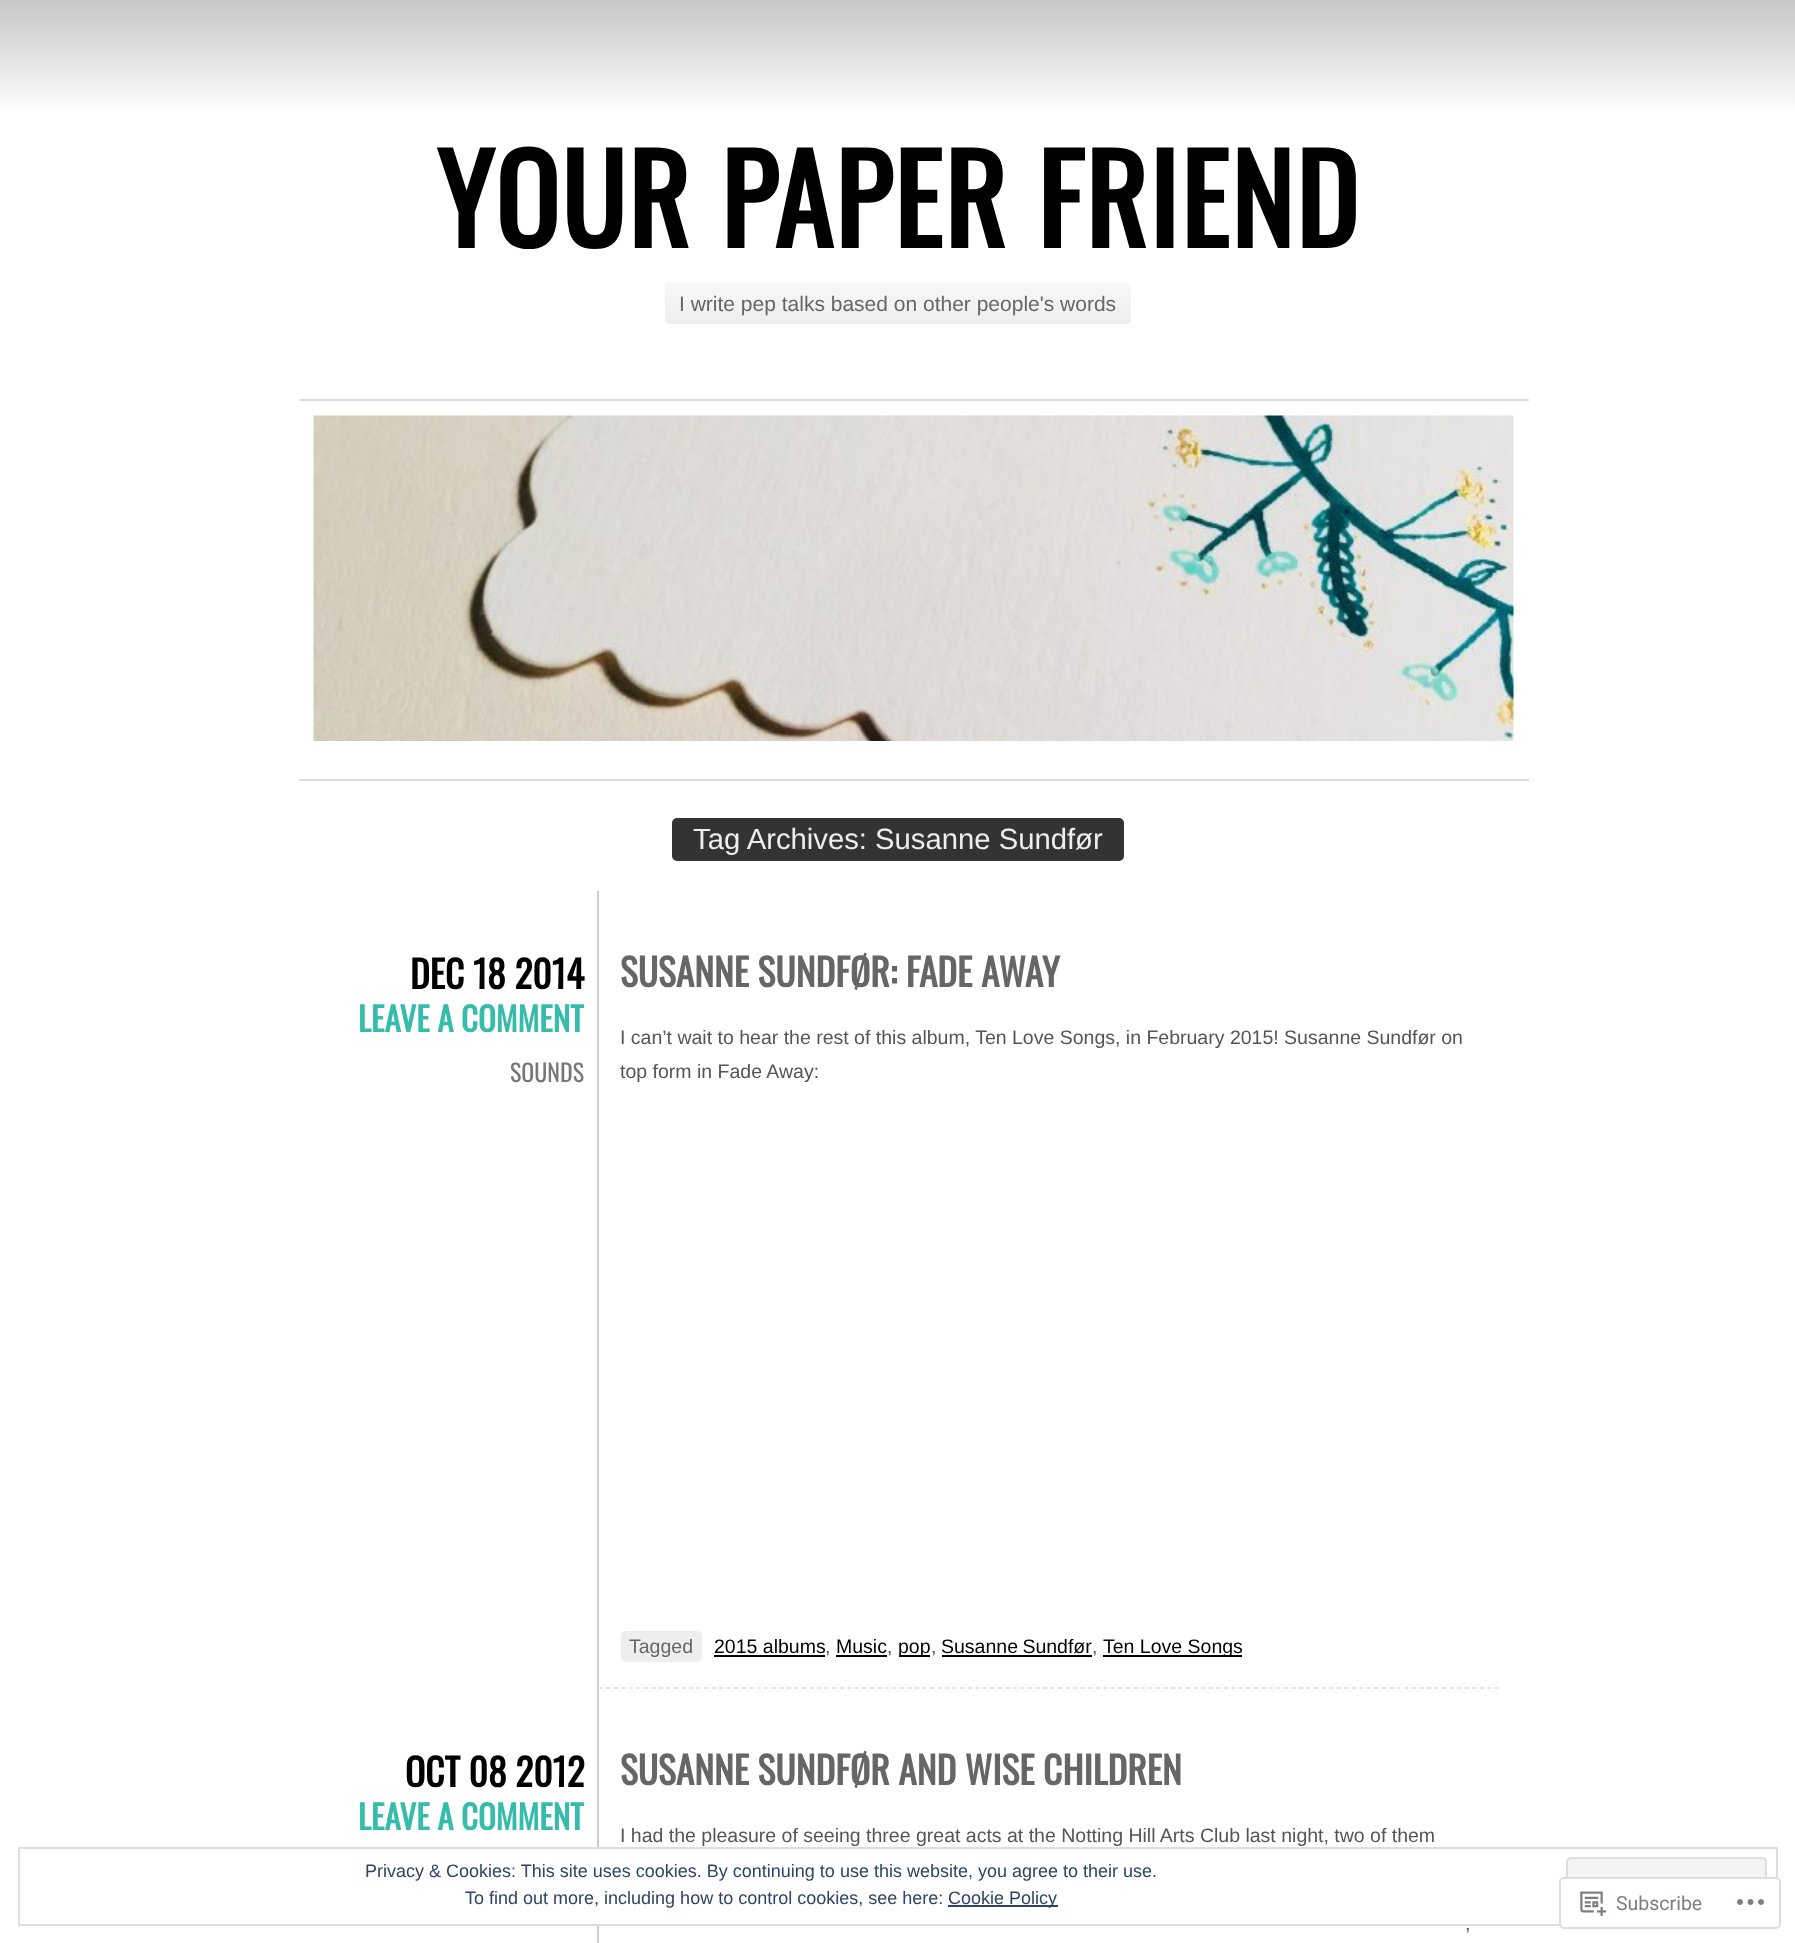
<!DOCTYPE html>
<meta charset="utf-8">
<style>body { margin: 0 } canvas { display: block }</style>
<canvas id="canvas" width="1795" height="1943"></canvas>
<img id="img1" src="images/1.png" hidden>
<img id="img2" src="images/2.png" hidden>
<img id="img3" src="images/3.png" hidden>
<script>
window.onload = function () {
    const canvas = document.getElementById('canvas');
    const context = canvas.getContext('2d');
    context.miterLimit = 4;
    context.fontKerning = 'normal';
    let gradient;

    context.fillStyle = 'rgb(255, 255, 255)';
    context.fillRect(0, 0, 1795, 1943);
    gradient = context.createLinearGradient(898, 0, 898, 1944);
    gradient.addColorStop(0, 'rgb(199, 199, 199)');
    gradient.addColorStop(0.06, 'rgb(255, 255, 255)');
    context.fillStyle = gradient;
    context.fillRect(0, 0, 1795, 111);
    gradient = context.createLinearGradient(898, 282, 898, 324);
    gradient.addColorStop(0, 'rgb(248, 248, 248)');
    gradient.addColorStop(1, 'rgb(238, 238, 238)');
    context.fillStyle = gradient;
    context.beginPath();
    context.roundRect(665, 282, 466, 42, 5);
    context.fill();
    context.fillStyle = 'rgb(221, 221, 221)';
    context.fillRect(299, 399, 1230, 2);
    context.fillRect(299, 779, 1230, 2);
    context.drawImage(document.getElementById('img1'), 313, 415, 1201, 326);
    context.fillStyle = 'rgb(51, 51, 51)';
    context.beginPath();
    context.roundRect(672, 818, 452, 43, 5);
    context.fill();
    context.fillStyle = 'rgb(204, 204, 204)';
    context.fillRect(597, 891, 2, 1052);
    context.beginPath();
    context.moveTo(598.5, 1688);
    context.lineTo(1498.5, 1688);
    context.strokeStyle = 'rgb(221, 221, 221)';
    context.lineWidth = 1.5;
    context.setLineDash([4.5, 3.03]);
    context.stroke();
    context.fillStyle = 'rgb(238, 238, 238)';
    context.beginPath();
    context.roundRect(621, 1631, 81, 31, 5);
    context.fill();
    context.fillStyle = 'rgb(0, 0, 0)';
    context.fillRect(714, 1655, 111, 2);
    context.fillRect(836, 1655, 51, 2);
    context.fillRect(899, 1655, 31, 2);
    context.fillRect(942, 1655, 150, 2);
    context.fillRect(1103, 1655, 139, 2);
    context.fillStyle = 'rgb(255, 255, 255)';
    context.fillRect(597, 1849, 2, 75);
    context.strokeStyle = 'rgb(222, 222, 222)';
    context.lineWidth = 2;
    context.setLineDash([]);
    context.strokeRect(19, 1848, 1758, 77);
    context.fillStyle = 'rgb(243, 243, 243)';
    context.beginPath();
    context.roundRect(1567, 1858, 199, 57, 4);
    context.fill();
    context.stroke();
    context.fillStyle = 'rgb(46, 68, 103)';
    context.fillRect(948, 1905, 110, 2);
    context.fillStyle = 'rgba(255, 255, 255, 0.98)';
    context.beginPath();
    context.roundRect(1559, 1877, 222, 52, 5);
    context.fill();
    context.beginPath();
    context.roundRect(1560, 1878, 220, 50, 4);
    context.strokeStyle = 'rgba(220, 220, 222, 0.98)';
    context.stroke();
    context.drawImage(document.getElementById('img2'), 1580, 1891, 27, 25);
    context.drawImage(document.getElementById('img3'), 1737, 1899, 27, 6);
    context.letterSpacing = '1.5px';
    context.font = 'bold 120px Oswald';
    context.fillStyle = 'rgb(0, 0, 0)';
    context.fillText('YOUR PAPER FRIEND', 436, 248);
    context.letterSpacing = '0px';
    context.font = '21px Liberation Sans';
    context.fillStyle = 'rgb(102, 102, 102)';
    context.fillText('I write pep talks based on other people\'s words', 679, 311);
    context.font = '29.25px Liberation Sans';
    context.fillStyle = 'rgb(238, 238, 238)';
    context.fillText('Tag Archives: Susanne Sundfør', 693, 849);
    context.font = 'bold 37.5px Oswald';
    context.fillStyle = 'rgb(0, 0, 0)';
    context.fillText('DEC 18 2014', 410, 989);
    context.font = 'bold 33px Oswald';
    context.fillStyle = 'rgb(54, 188, 171)';
    context.fillText('LEAVE A COMMENT', 358, 1032);
    context.font = '24px Oswald';
    context.fillStyle = 'rgb(119, 119, 119)';
    context.fillText('SOUNDS', 510, 1082);
    context.font = 'bold 37.5px Oswald';
    context.fillStyle = 'rgb(102, 102, 102)';
    context.fillText('SUSANNE SUNDFØR: FADE AWAY', 620, 987);
    context.font = '19.5px Liberation Sans';
    context.fillStyle = 'rgb(85, 85, 85)';
    context.fillText('I can’t wait to hear the rest of this album, Ten Love Songs, in February 2015! Susanne Sundfør on', 620, 1044);
    context.fillText('top form in Fade Away:', 620, 1078);
    context.fillStyle = 'rgb(102, 102, 102)';
    context.fillText('Tagged', 629, 1653);
    context.fillStyle = 'rgb(0, 0, 0)';
    context.fillText('2015 albums', 714, 1653);
    context.fillStyle = 'rgb(85, 85, 85)';
    context.fillText(',', 825, 1653);
    context.fillStyle = 'rgb(0, 0, 0)';
    context.fillText('Music', 836, 1653);
    context.fillStyle = 'rgb(85, 85, 85)';
    context.fillText(',', 887, 1653);
    context.fillStyle = 'rgb(0, 0, 0)';
    context.fillText('pop', 898, 1653);
    context.fillStyle = 'rgb(85, 85, 85)';
    context.fillText(',', 931, 1653);
    context.wordSpacing = '-1px';
    context.fillStyle = 'rgb(0, 0, 0)';
    context.fillText('Susanne Sundfør', 941, 1653);
    context.wordSpacing = '0px';
    context.fillStyle = 'rgb(85, 85, 85)';
    context.fillText(',', 1092, 1653);
    context.fillStyle = 'rgb(0, 0, 0)';
    context.fillText('Ten Love Songs', 1103, 1653);
    context.font = 'bold 37.5px Oswald';
    context.fillText('OCT 08 2012', 405, 1787);
    context.font = 'bold 33px Oswald';
    context.fillStyle = 'rgb(54, 188, 171)';
    context.fillText('LEAVE A COMMENT', 358, 1830);
    context.font = 'bold 37.5px Oswald';
    context.fillStyle = 'rgb(102, 102, 102)';
    context.fillText('SUSANNE SUNDFØR AND WISE CHILDREN', 620, 1785);
    context.font = '19.5px Liberation Sans';
    context.fillStyle = 'rgb(85, 85, 85)';
    context.fillText('I had the pleasure of seeing three great acts at the Notting Hill Arts Club last night, two of them', 620, 1842);
    context.fillText(',', 1465, 1930);
    context.font = '18px Liberation Sans';
    context.fillStyle = 'rgb(46, 68, 103)';
    context.fillText('Privacy & Cookies: This site uses cookies. By continuing to use this website, you agree to their use.', 365, 1877);
    context.fillText('To find out more, including how to control cookies, see here:', 465, 1904);
    context.fillText('Cookie Policy', 948, 1904);
    context.font = '19.5px Roboto';
    context.fillStyle = 'rgb(122, 126, 132)';
    context.fillText('Subscribe', 1616, 1910);
};
</script>
